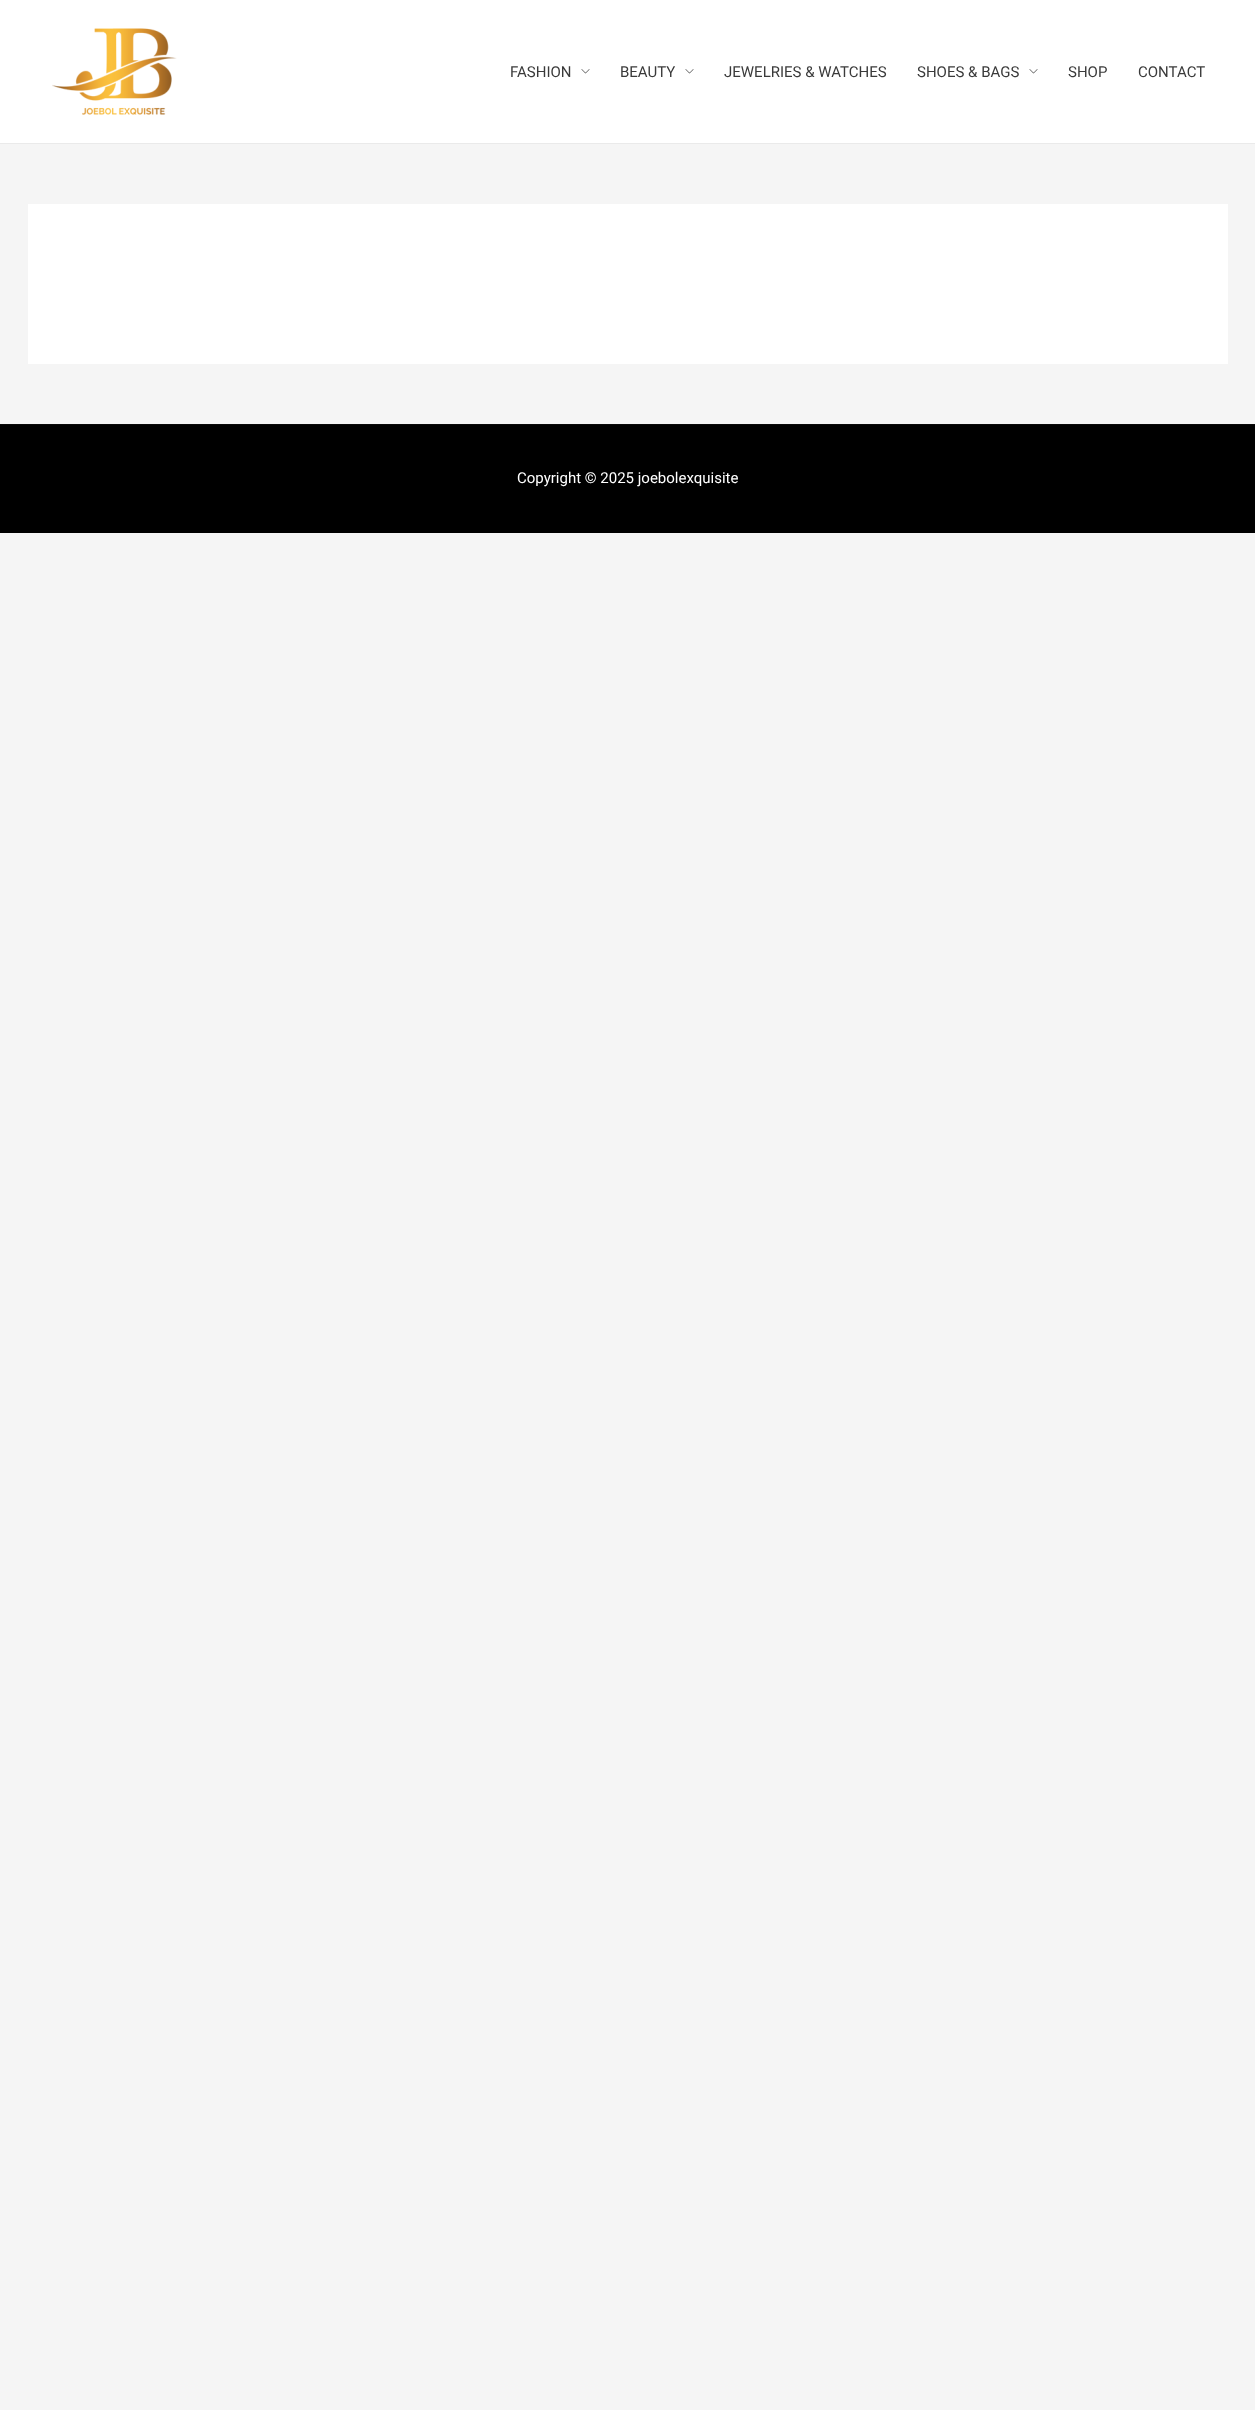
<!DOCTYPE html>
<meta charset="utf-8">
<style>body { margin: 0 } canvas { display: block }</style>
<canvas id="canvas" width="1255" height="2410"></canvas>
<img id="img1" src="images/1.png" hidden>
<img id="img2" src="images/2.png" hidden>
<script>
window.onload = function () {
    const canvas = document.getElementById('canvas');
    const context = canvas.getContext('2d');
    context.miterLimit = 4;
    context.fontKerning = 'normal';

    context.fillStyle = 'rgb(245, 245, 245)';
    context.fillRect(0, 0, 1255, 2410);
    context.fillStyle = 'rgb(255, 255, 255)';
    context.fillRect(0, 0, 1255, 143);
    context.fillStyle = 'rgb(234, 234, 234)';
    context.fillRect(0, 143, 1255, 1);
    context.drawImage(document.getElementById('img1'), 52, 28, 125, 87);
    context.drawImage(document.getElementById('img2'), 581, 69, 9, 5);
    context.drawImage(document.getElementById('img2'), 685, 69, 9, 5);
    context.drawImage(document.getElementById('img2'), 1029, 69, 9, 5);
    context.fillStyle = 'rgb(255, 255, 255)';
    context.fillRect(28, 204, 1200, 160);
    context.fillStyle = 'rgb(10, 10, 10)';
    context.fillRect(0, 424, 1255, 1);
    context.fillStyle = 'rgb(0, 0, 0)';
    context.fillRect(0, 425, 1255, 108);
    context.font = '15px Roboto';
    context.fillStyle = 'rgb(58, 58, 58)';
    context.fillText('FASHION', 510, 77);
    context.fillText('BEAUTY', 620, 77);
    context.fillText('JEWELRIES & WATCHES', 724, 77);
    context.fillText('SHOES & BAGS', 917, 77);
    context.fillText('SHOP', 1068, 77);
    context.fillText('CONTACT', 1138, 77);
    context.fillStyle = 'rgb(255, 255, 255)';
    context.fillText('Copyright © 2025 joebolexquisite', 517, 483);
};
</script>
